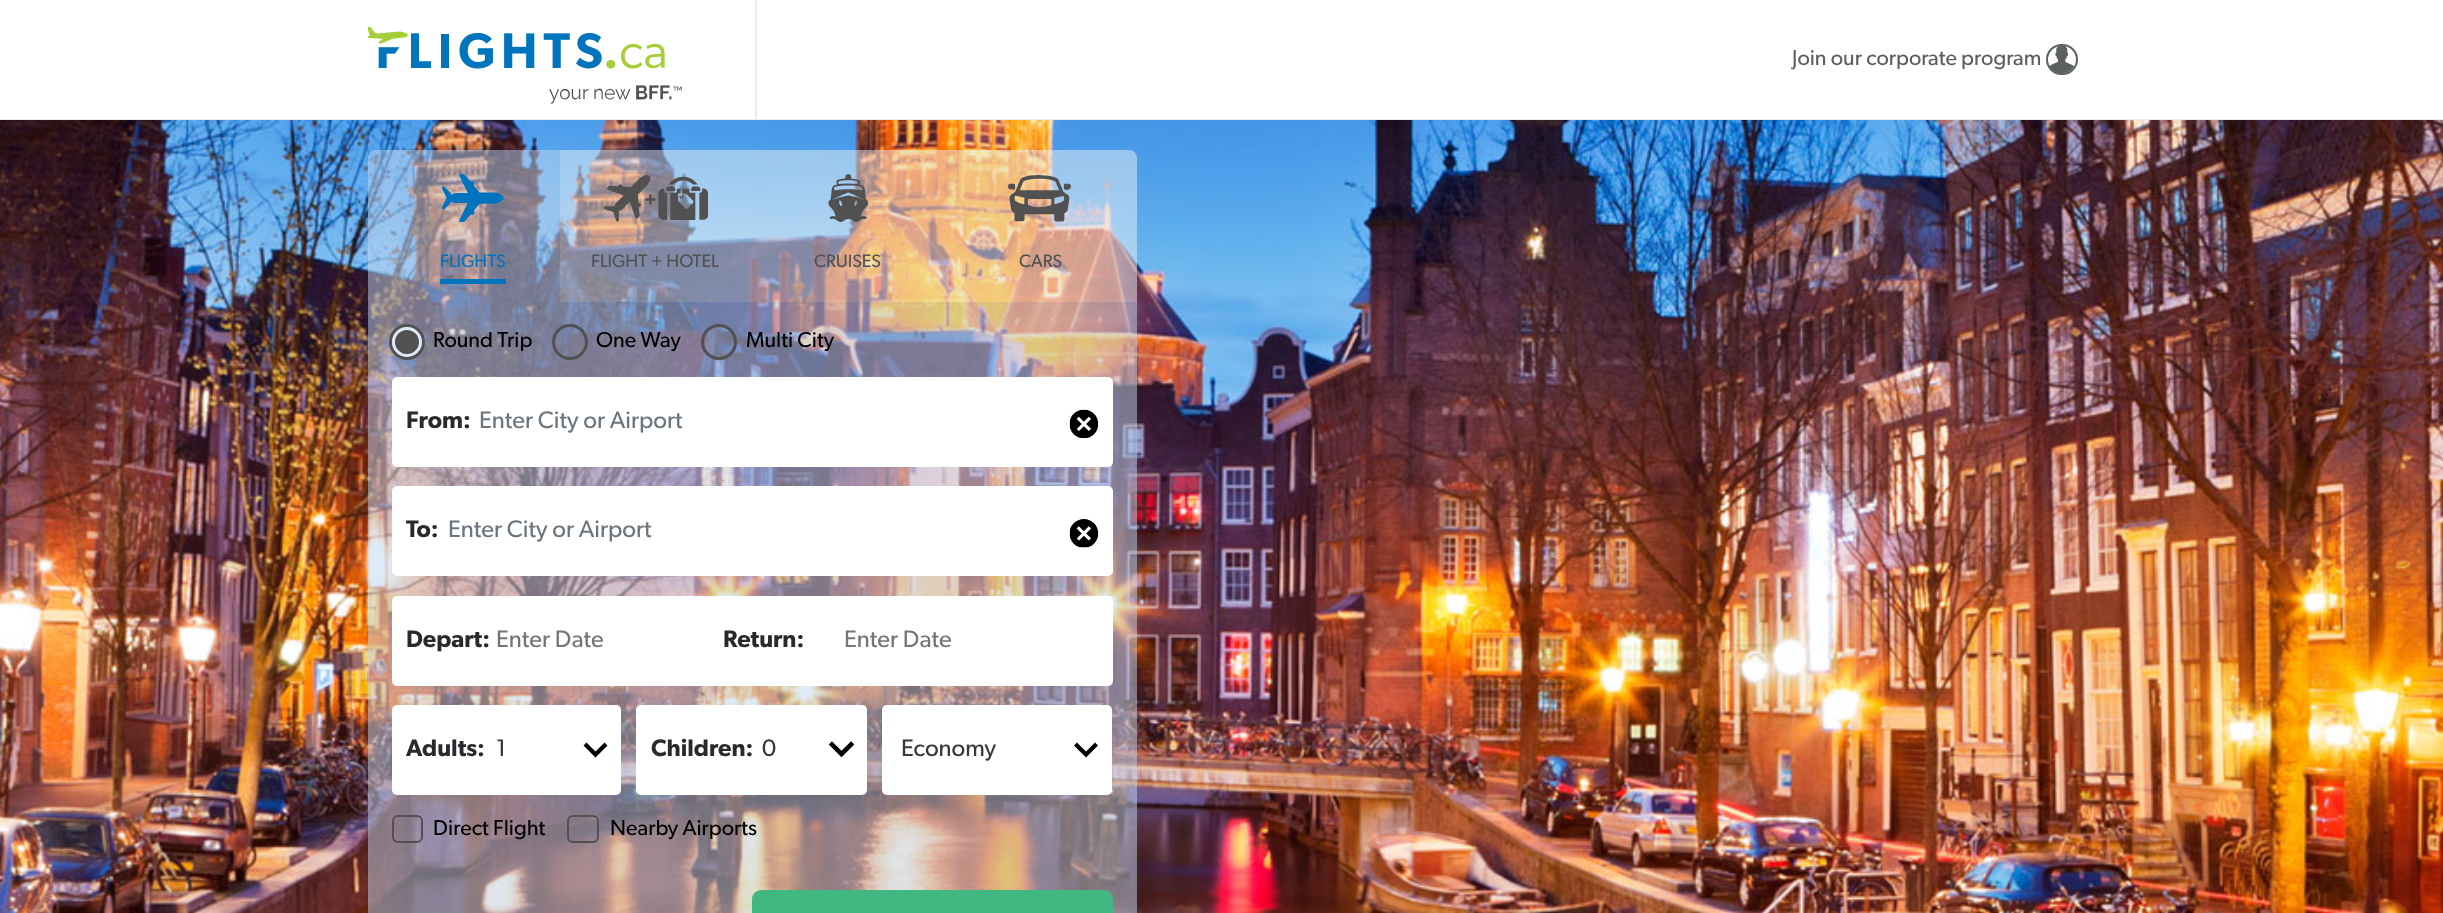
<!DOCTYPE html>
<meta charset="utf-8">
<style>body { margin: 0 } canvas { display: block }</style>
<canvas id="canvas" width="2443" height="913"></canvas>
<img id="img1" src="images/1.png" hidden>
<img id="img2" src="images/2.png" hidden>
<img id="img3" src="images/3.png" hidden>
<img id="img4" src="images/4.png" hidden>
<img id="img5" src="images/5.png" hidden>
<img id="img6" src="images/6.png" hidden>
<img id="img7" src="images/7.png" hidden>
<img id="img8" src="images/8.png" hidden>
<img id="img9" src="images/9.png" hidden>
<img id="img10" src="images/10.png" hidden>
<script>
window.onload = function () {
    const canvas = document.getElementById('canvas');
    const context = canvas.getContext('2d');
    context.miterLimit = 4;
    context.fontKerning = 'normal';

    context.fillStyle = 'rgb(255, 255, 255)';
    context.fillRect(0, 0, 2443, 913);
    context.fillStyle = 'rgb(235, 235, 235)';
    context.fillRect(0, 119, 2443, 1);
    context.fillRect(755, 0, 2, 119);
    context.drawImage(document.getElementById('img1'), 368, 26, 314, 78);
    context.beginPath();
    context.roundRect(2047, 45, 30, 29, 14.5);
    context.strokeStyle = 'rgb(92, 96, 96)';
    context.lineWidth = 2;
    context.stroke();
    context.drawImage(document.getElementById('img2'), 2049, 46, 25, 27);
    context.drawImage(document.getElementById('img3'), 0, 120, 2443, 793);
    context.fillStyle = 'rgba(194, 214, 239, 0.5)';
    context.beginPath();
    context.roundRect(368, 150, 192, 152, [8, 0, 0, 0]);
    context.fill();
    context.drawImage(document.getElementById('img4'), 441, 174, 63, 48);
    context.fillStyle = 'rgb(0, 116, 188)';
    context.fillRect(440, 279, 66, 5);
    context.fillStyle = 'rgba(234, 239, 243, 0.5)';
    context.fillRect(560, 150, 192, 152);
    context.drawImage(document.getElementById('img5'), 603, 175, 105, 47);
    context.fillRect(752, 150, 192, 152);
    context.drawImage(document.getElementById('img6'), 828, 174, 41, 48);
    context.beginPath();
    context.roundRect(944, 150, 193, 152, [0, 8, 0, 0]);
    context.fill();
    context.drawImage(document.getElementById('img7'), 1008, 175, 63, 47);
    context.fillStyle = 'rgba(194, 214, 239, 0.5)';
    context.fillRect(368, 302, 769, 611);
    context.beginPath();
    context.arc(407, 342, 16.5, 0, 2 * Math.PI);
    context.strokeStyle = 'rgb(81, 81, 81)';
    context.lineWidth = 3;
    context.stroke();
    context.fillStyle = 'rgb(81, 81, 81)';
    context.beginPath();
    context.arc(407, 342, 13.5, 0, 2 * Math.PI);
    context.fill();
    context.strokeStyle = 'rgb(225, 232, 244)';
    context.stroke();
    context.beginPath();
    context.arc(570, 342, 16.5, 0, 2 * Math.PI);
    context.strokeStyle = 'rgb(81, 81, 81)';
    context.stroke();
    context.beginPath();
    context.arc(719, 342, 16.5, 0, 2 * Math.PI);
    context.stroke();
    context.fillStyle = 'rgb(255, 255, 255)';
    context.beginPath();
    context.roundRect(392, 377, 721, 90, 5);
    context.fill();
    context.drawImage(document.getElementById('img8'), 1069, 409, 30, 29);
    context.beginPath();
    context.roundRect(392, 486, 721, 90, 5);
    context.fill();
    context.drawImage(document.getElementById('img9'), 1069, 519, 30, 29);
    context.beginPath();
    context.roundRect(392, 596, 721, 90, 5);
    context.fill();
    context.beginPath();
    context.roundRect(392, 705, 229, 90, 5);
    context.fill();
    context.fillStyle = 'rgb(1, 1, 1)';
    context.beginPath();
    context.moveTo(595.5, 751.5);
    context.lineTo(586.5, 742.5);
    context.lineTo(583.5, 745.5);
    context.lineTo(595.5, 757.5);
    context.lineTo(607.5, 745.5);
    context.lineTo(604.5, 742.5);
    context.closePath();
    context.fill();
    context.fillStyle = 'rgb(255, 255, 255)';
    context.beginPath();
    context.roundRect(636, 705, 231, 90, 5);
    context.fill();
    context.drawImage(document.getElementById('img10'), 828, 741, 27, 17);
    context.beginPath();
    context.roundRect(882, 705, 230, 90, 5);
    context.fill();
    context.fillStyle = 'rgb(1, 1, 1)';
    context.beginPath();
    context.moveTo(1086, 751.5);
    context.lineTo(1077, 742.5);
    context.lineTo(1074, 745.5);
    context.lineTo(1086, 757.5);
    context.lineTo(1098, 745.5);
    context.lineTo(1095, 742.5);
    context.closePath();
    context.fill();
    context.beginPath();
    context.roundRect(393, 816, 29, 26, 5);
    context.lineWidth = 2;
    context.stroke();
    context.beginPath();
    context.roundRect(568, 816, 30, 26, 5);
    context.stroke();
    context.fillStyle = 'rgb(65, 184, 129)';
    context.beginPath();
    context.roundRect(752, 890, 361, 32, 9);
    context.fill();
    context.font = '21.6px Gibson';
    context.fillStyle = 'rgb(94, 94, 94)';
    context.fillText('Join our corporate program', 1792, 65);
    context.font = '18px Gibson';
    context.fillStyle = 'rgb(0, 116, 188)';
    context.fillText('FLIGHTS', 440, 267);
    context.fillStyle = 'rgb(81, 81, 81)';
    context.fillText('FLIGHT + HOTEL', 591, 267);
    context.fillText('CRUISES', 814, 267);
    context.fillText('CARS', 1019, 267);
    context.font = '21.6px Gibson';
    context.fillStyle = 'rgb(0, 0, 0)';
    context.fillText('Round Trip', 433, 347);
    context.fillText('One Way', 596, 347);
    context.fillText('Multi City', 746, 347);
    context.font = '600 24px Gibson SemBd';
    context.fillStyle = 'rgb(41, 42, 45)';
    context.fillText('From:', 406, 428);
    context.font = '24px Gibson';
    context.fillStyle = 'rgb(108, 117, 125)';
    context.fillText('Enter City or Airport', 479, 428);
    context.font = '600 24px Gibson SemBd';
    context.fillStyle = 'rgb(41, 42, 45)';
    context.fillText('To:', 406, 537);
    context.font = '24px Gibson';
    context.fillStyle = 'rgb(108, 117, 125)';
    context.fillText('Enter City or Airport', 448, 537);
    context.font = '600 24px Gibson SemBd';
    context.fillStyle = 'rgb(41, 42, 45)';
    context.fillText('Depart:', 406, 647);
    context.font = '24px Gibson';
    context.fillStyle = 'rgb(117, 117, 117)';
    context.fillText('Enter Date', 496, 647);
    context.fillText('Enter Date', 844, 647);
    context.font = '600 24px Gibson SemBd';
    context.fillStyle = 'rgb(41, 42, 45)';
    context.fillText('Return:', 723, 647);
    context.fillText('Adults:', 406, 756);
    context.font = '24px Gibson';
    context.fillStyle = 'rgb(56, 56, 56)';
    context.fillText('1', 496, 756);
    context.font = '600 24px Gibson SemBd';
    context.fillStyle = 'rgb(41, 42, 45)';
    context.fillText('Children:', 651, 756);
    context.font = '24px Gibson';
    context.fillStyle = 'rgb(56, 56, 56)';
    context.fillText('0', 762, 756);
    context.fillText('Economy', 901, 756);
    context.font = '21.6px Gibson';
    context.fillStyle = 'rgb(0, 0, 0)';
    context.fillText('Direct Flight', 433, 835);
    context.fillText('Nearby Airports', 610, 835);
};
</script>
